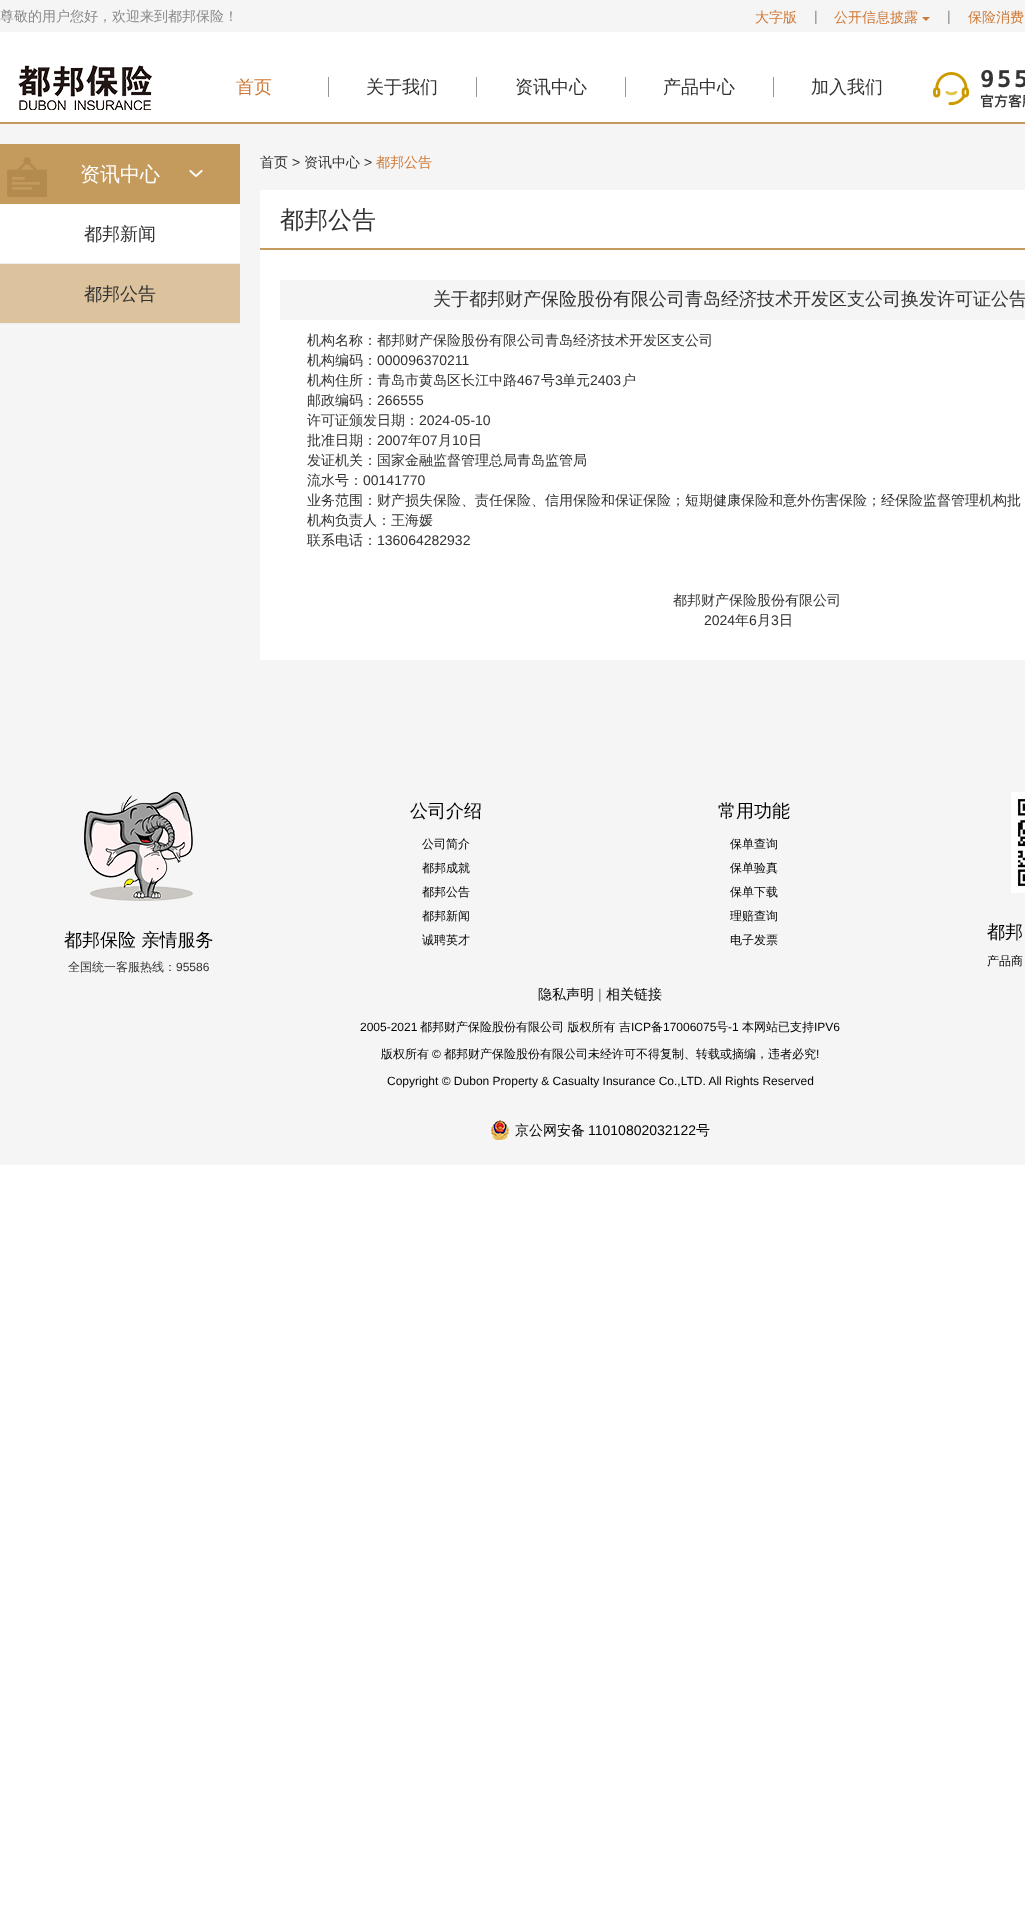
<!DOCTYPE html>
<meta charset="utf-8">
<style>body { margin: 0 } canvas { display: block }</style>
<canvas id="canvas" width="1025" height="1913"></canvas>
<img id="img1" src="images/1.png" hidden>
<img id="img2" src="images/2.png" hidden>
<img id="img3" src="images/3.png" hidden>
<img id="img4" src="images/4.png" hidden>
<img id="img5" src="images/5.png" hidden>
<img id="img6" src="images/6.png" hidden>
<script>
window.onload = function () {
    const canvas = document.getElementById('canvas');
    const context = canvas.getContext('2d');
    context.miterLimit = 4;
    context.fontKerning = 'normal';

    context.fillStyle = 'rgb(255, 255, 255)';
    context.fillRect(0, 0, 1025, 1913);
    context.fillStyle = 'rgb(245, 245, 245)';
    context.fillRect(0, 0, 1025, 32);
    context.fillStyle = 'rgb(206, 121, 55)';
    context.beginPath();
    context.moveTo(922, 17);
    context.lineTo(930, 17);
    context.lineTo(926, 21);
    context.closePath();
    context.fill();
    context.drawImage(document.getElementById('img1'), 18, 65, 134, 45);
    context.fillStyle = 'rgb(149, 149, 149)';
    context.fillRect(328, 77, 1, 20);
    context.fillRect(476, 77, 1, 20);
    context.fillRect(625, 77, 1, 20);
    context.fillRect(773, 77, 1, 20);
    context.drawImage(document.getElementById('img2'), 933, 69, 92, 39);
    context.fillStyle = 'rgb(245, 245, 245)';
    context.fillRect(0, 124, 1025, 1041);
    context.fillStyle = 'rgb(196, 155, 93)';
    context.fillRect(0, 122, 1025, 2);
    context.drawImage(document.getElementById('img3'), 0, 144, 240, 60);
    context.fillStyle = 'rgb(255, 255, 255)';
    context.fillRect(0, 204, 240, 59);
    context.fillStyle = 'rgb(238, 238, 238)';
    context.fillRect(0, 263, 240, 1);
    context.fillStyle = 'rgb(220, 195, 158)';
    context.fillRect(0, 264, 240, 59);
    context.fillStyle = 'rgb(238, 238, 238)';
    context.fillRect(0, 323, 240, 1);
    context.fillStyle = 'rgb(255, 255, 255)';
    context.fillRect(260, 190, 765, 58);
    context.fillStyle = 'rgb(196, 155, 93)';
    context.fillRect(260, 248, 765, 2);
    context.fillStyle = 'rgb(255, 255, 255)';
    context.fillRect(260, 250, 765, 410);
    context.fillStyle = 'rgb(245, 245, 245)';
    context.fillRect(280, 280, 745, 40);
    context.drawImage(document.getElementById('img4'), 84, 792, 109, 109);
    context.drawImage(document.getElementById('img5'), 1011, 792, 14, 101);
    context.drawImage(document.getElementById('img6'), 491, 1120, 18, 20);
    context.font = '500 14px WenQuanYi Zen Hei';
    context.fillStyle = 'rgb(137, 137, 137)';
    context.fillText('尊敬的用户您好，欢迎来到都邦保险！', 0, 21);
    context.fillStyle = 'rgb(206, 121, 55)';
    context.fillText('大字版', 755, 22);
    context.font = '14px Liberation Sans';
    context.fillStyle = 'rgb(137, 137, 137)';
    context.fillText('|', 814, 21);
    context.font = '500 14px WenQuanYi Zen Hei';
    context.fillStyle = 'rgb(206, 121, 55)';
    context.fillText('公开信息披露', 834, 22);
    context.font = '14px Liberation Sans';
    context.fillStyle = 'rgb(137, 137, 137)';
    context.fillText('|', 947, 21);
    context.font = '500 14px WenQuanYi Zen Hei';
    context.fillStyle = 'rgb(206, 121, 55)';
    context.fillText('保险消费', 968, 22);
    context.font = '500 18px WenQuanYi Zen Hei';
    context.fillText('首页', 236, 93);
    context.fillStyle = 'rgb(49, 49, 49)';
    context.fillText('关于我们', 366, 93);
    context.fillText('资讯中心', 515, 93);
    context.fillText('产品中心', 663, 93);
    context.fillText('加入我们', 811, 93);
    context.font = '500 20px WenQuanYi Zen Hei';
    context.fillStyle = 'rgb(255, 255, 255)';
    context.fillText('资讯中心', 80, 181);
    context.font = '500 18px WenQuanYi Zen Hei';
    context.fillStyle = 'rgb(49, 49, 49)';
    context.fillText('都邦新闻', 84, 240);
    context.fillText('都邦公告', 84, 300);
    context.font = '500 14px WenQuanYi Zen Hei';
    context.fillText('首页', 260, 167);
    context.font = '14px Liberation Sans';
    context.fillText('>', 292, 167);
    context.font = '500 14px WenQuanYi Zen Hei';
    context.fillText('资讯中心', 304, 167);
    context.font = '14px Liberation Sans';
    context.fillText('>', 364, 167);
    context.font = '500 14px WenQuanYi Zen Hei';
    context.fillStyle = 'rgb(206, 121, 55)';
    context.fillText('都邦公告', 376, 167);
    context.font = '500 24px WenQuanYi Zen Hei';
    context.fillStyle = 'rgb(49, 49, 49)';
    context.fillText('都邦公告', 280, 228);
    context.font = '500 18px WenQuanYi Zen Hei';
    context.fillText('关于都邦财产保险股份有限公司青岛经济技术开发区支公司换发许可证公告', 433, 305);
    context.font = '500 14px WenQuanYi Zen Hei';
    context.fillText('机构名称：都邦财产保险股份有限公司青岛经济技术开发区支公司', 307, 345);
    context.fillText('机构编码：', 307, 365);
    context.font = '14px Liberation Sans';
    context.fillText('000096370211', 377, 365);
    context.font = '500 14px WenQuanYi Zen Hei';
    context.fillText('机构住所：青岛市黄岛区长江中路', 307, 385);
    context.font = '14px Liberation Sans';
    context.fillText('467', 517, 385);
    context.font = '500 14px WenQuanYi Zen Hei';
    context.fillText('号', 541, 385);
    context.font = '14px Liberation Sans';
    context.fillText('3', 555, 385);
    context.font = '500 14px WenQuanYi Zen Hei';
    context.fillText('单元', 562, 385);
    context.font = '14px Liberation Sans';
    context.fillText('2403', 590, 385);
    context.font = '500 14px WenQuanYi Zen Hei';
    context.fillText('户', 622, 385);
    context.fillText('邮政编码：', 307, 405);
    context.font = '14px Liberation Sans';
    context.fillText('266555', 377, 405);
    context.font = '500 14px WenQuanYi Zen Hei';
    context.fillText('许可证颁发日期：', 307, 425);
    context.font = '14px Liberation Sans';
    context.fillText('2024-05-10', 419, 425);
    context.font = '500 14px WenQuanYi Zen Hei';
    context.fillText('批准日期：', 307, 445);
    context.font = '14px Liberation Sans';
    context.fillText('2007', 377, 445);
    context.font = '500 14px WenQuanYi Zen Hei';
    context.fillText('年', 408, 445);
    context.font = '14px Liberation Sans';
    context.fillText('07', 422, 445);
    context.font = '500 14px WenQuanYi Zen Hei';
    context.fillText('月', 438, 445);
    context.font = '14px Liberation Sans';
    context.fillText('10', 452, 445);
    context.font = '500 14px WenQuanYi Zen Hei';
    context.fillText('日', 468, 445);
    context.fillText('发证机关：国家金融监督管理总局青岛监管局', 307, 465);
    context.fillText('流水号：', 307, 485);
    context.font = '14px Liberation Sans';
    context.fillText('00141770', 363, 485);
    context.font = '500 14px WenQuanYi Zen Hei';
    context.fillText('业务范围：财产损失保险、责任保险、信用保险和保证保险；短期健康保险和意外伤害保险；经保险监督管理机构批', 307, 505);
    context.fillText('机构负责人：王海媛', 307, 525);
    context.fillText('联系电话：', 307, 545);
    context.font = '14px Liberation Sans';
    context.fillText('136064282932', 377, 545);
    context.font = '500 14px WenQuanYi Zen Hei';
    context.fillText('都邦财产保险股份有限公司', 673, 605);
    context.font = '14px Liberation Sans';
    context.fillText('2024', 704, 625);
    context.font = '500 14px WenQuanYi Zen Hei';
    context.fillText('年', 735, 625);
    context.font = '14px Liberation Sans';
    context.fillText('6', 749, 625);
    context.font = '500 14px WenQuanYi Zen Hei';
    context.fillText('月', 757, 625);
    context.font = '14px Liberation Sans';
    context.fillText('3', 771, 625);
    context.font = '500 14px WenQuanYi Zen Hei';
    context.fillText('日', 779, 625);
    context.font = '500 18px WenQuanYi Zen Hei';
    context.fillStyle = 'rgb(0, 0, 0)';
    context.fillText('都邦保险 亲情服务', 64, 946);
    context.font = '500 12px WenQuanYi Zen Hei';
    context.fillStyle = 'rgb(49, 49, 49)';
    context.fillText('全国统一客服热线：', 68, 971);
    context.font = '12px Liberation Sans';
    context.fillText('95586', 176, 971);
    context.font = '500 18px WenQuanYi Zen Hei';
    context.fillStyle = 'rgb(0, 0, 0)';
    context.fillText('公司介绍', 410, 817);
    context.font = '500 12px WenQuanYi Zen Hei';
    context.fillText('公司简介', 422, 848);
    context.fillText('都邦成就', 422, 872);
    context.fillText('都邦公告', 422, 896);
    context.fillText('都邦新闻', 422, 920);
    context.fillText('诚聘英才', 422, 944);
    context.font = '500 18px WenQuanYi Zen Hei';
    context.fillText('常用功能', 718, 817);
    context.font = '500 12px WenQuanYi Zen Hei';
    context.fillText('保单查询', 730, 848);
    context.fillText('保单验真', 730, 872);
    context.fillText('保单下载', 730, 896);
    context.fillText('理赔查询', 730, 920);
    context.fillText('电子发票', 730, 944);
    context.font = '500 18px WenQuanYi Zen Hei';
    context.fillText('都邦', 987, 938);
    context.font = '500 12px WenQuanYi Zen Hei';
    context.fillText('产品商', 987, 965);
    context.font = '500 14px WenQuanYi Zen Hei';
    context.fillText('隐私声明', 538, 999);
    context.font = '14px Liberation Sans';
    context.fillStyle = 'rgb(119, 119, 119)';
    context.fillText('|', 598, 999);
    context.font = '500 14px WenQuanYi Zen Hei';
    context.fillStyle = 'rgb(0, 0, 0)';
    context.fillText('相关链接', 606, 999);
    context.font = '12px Liberation Sans';
    context.fillText('2005-2021', 360, 1031);
    context.font = '500 12px WenQuanYi Zen Hei';
    context.fillText('都邦财产保险股份有限公司 版权所有', 420, 1031);
    context.fillText('吉', 619, 1031);
    context.font = '12px Liberation Sans';
    context.fillText('ICP', 631, 1031);
    context.font = '500 12px WenQuanYi Zen Hei';
    context.fillText('备', 651, 1031);
    context.font = '12px Liberation Sans';
    context.fillText('17006075', 663, 1031);
    context.font = '500 12px WenQuanYi Zen Hei';
    context.fillText('号', 716, 1031);
    context.font = '12px Liberation Sans';
    context.fillText('-1', 728, 1031);
    context.font = '500 12px WenQuanYi Zen Hei';
    context.fillText('本网站已支持', 742, 1031);
    context.font = '12px Liberation Sans';
    context.fillText('IPV6', 814, 1031);
    context.font = '500 12px WenQuanYi Zen Hei';
    context.fillText('版权所有', 381, 1058);
    context.font = '12px Liberation Sans';
    context.fillText('©', 432, 1058);
    context.font = '500 12px WenQuanYi Zen Hei';
    context.fillText('都邦财产保险股份有限公司未经许可不得复制、转载或摘编，违者必究', 444, 1058);
    context.font = '12px Liberation Sans';
    context.fillText('!', 816, 1058);
    context.fillText('Copyright © Dubon Property & Casualty Insurance Co.,LTD. All Rights Reserved', 387, 1085);
    context.font = '500 14px WenQuanYi Zen Hei';
    context.fillText('京公网安备', 515, 1135);
    context.font = '14px Liberation Sans';
    context.fillText('11010802032122', 588, 1135);
    context.font = '500 14px WenQuanYi Zen Hei';
    context.fillText('号', 696, 1135);
};
</script>
